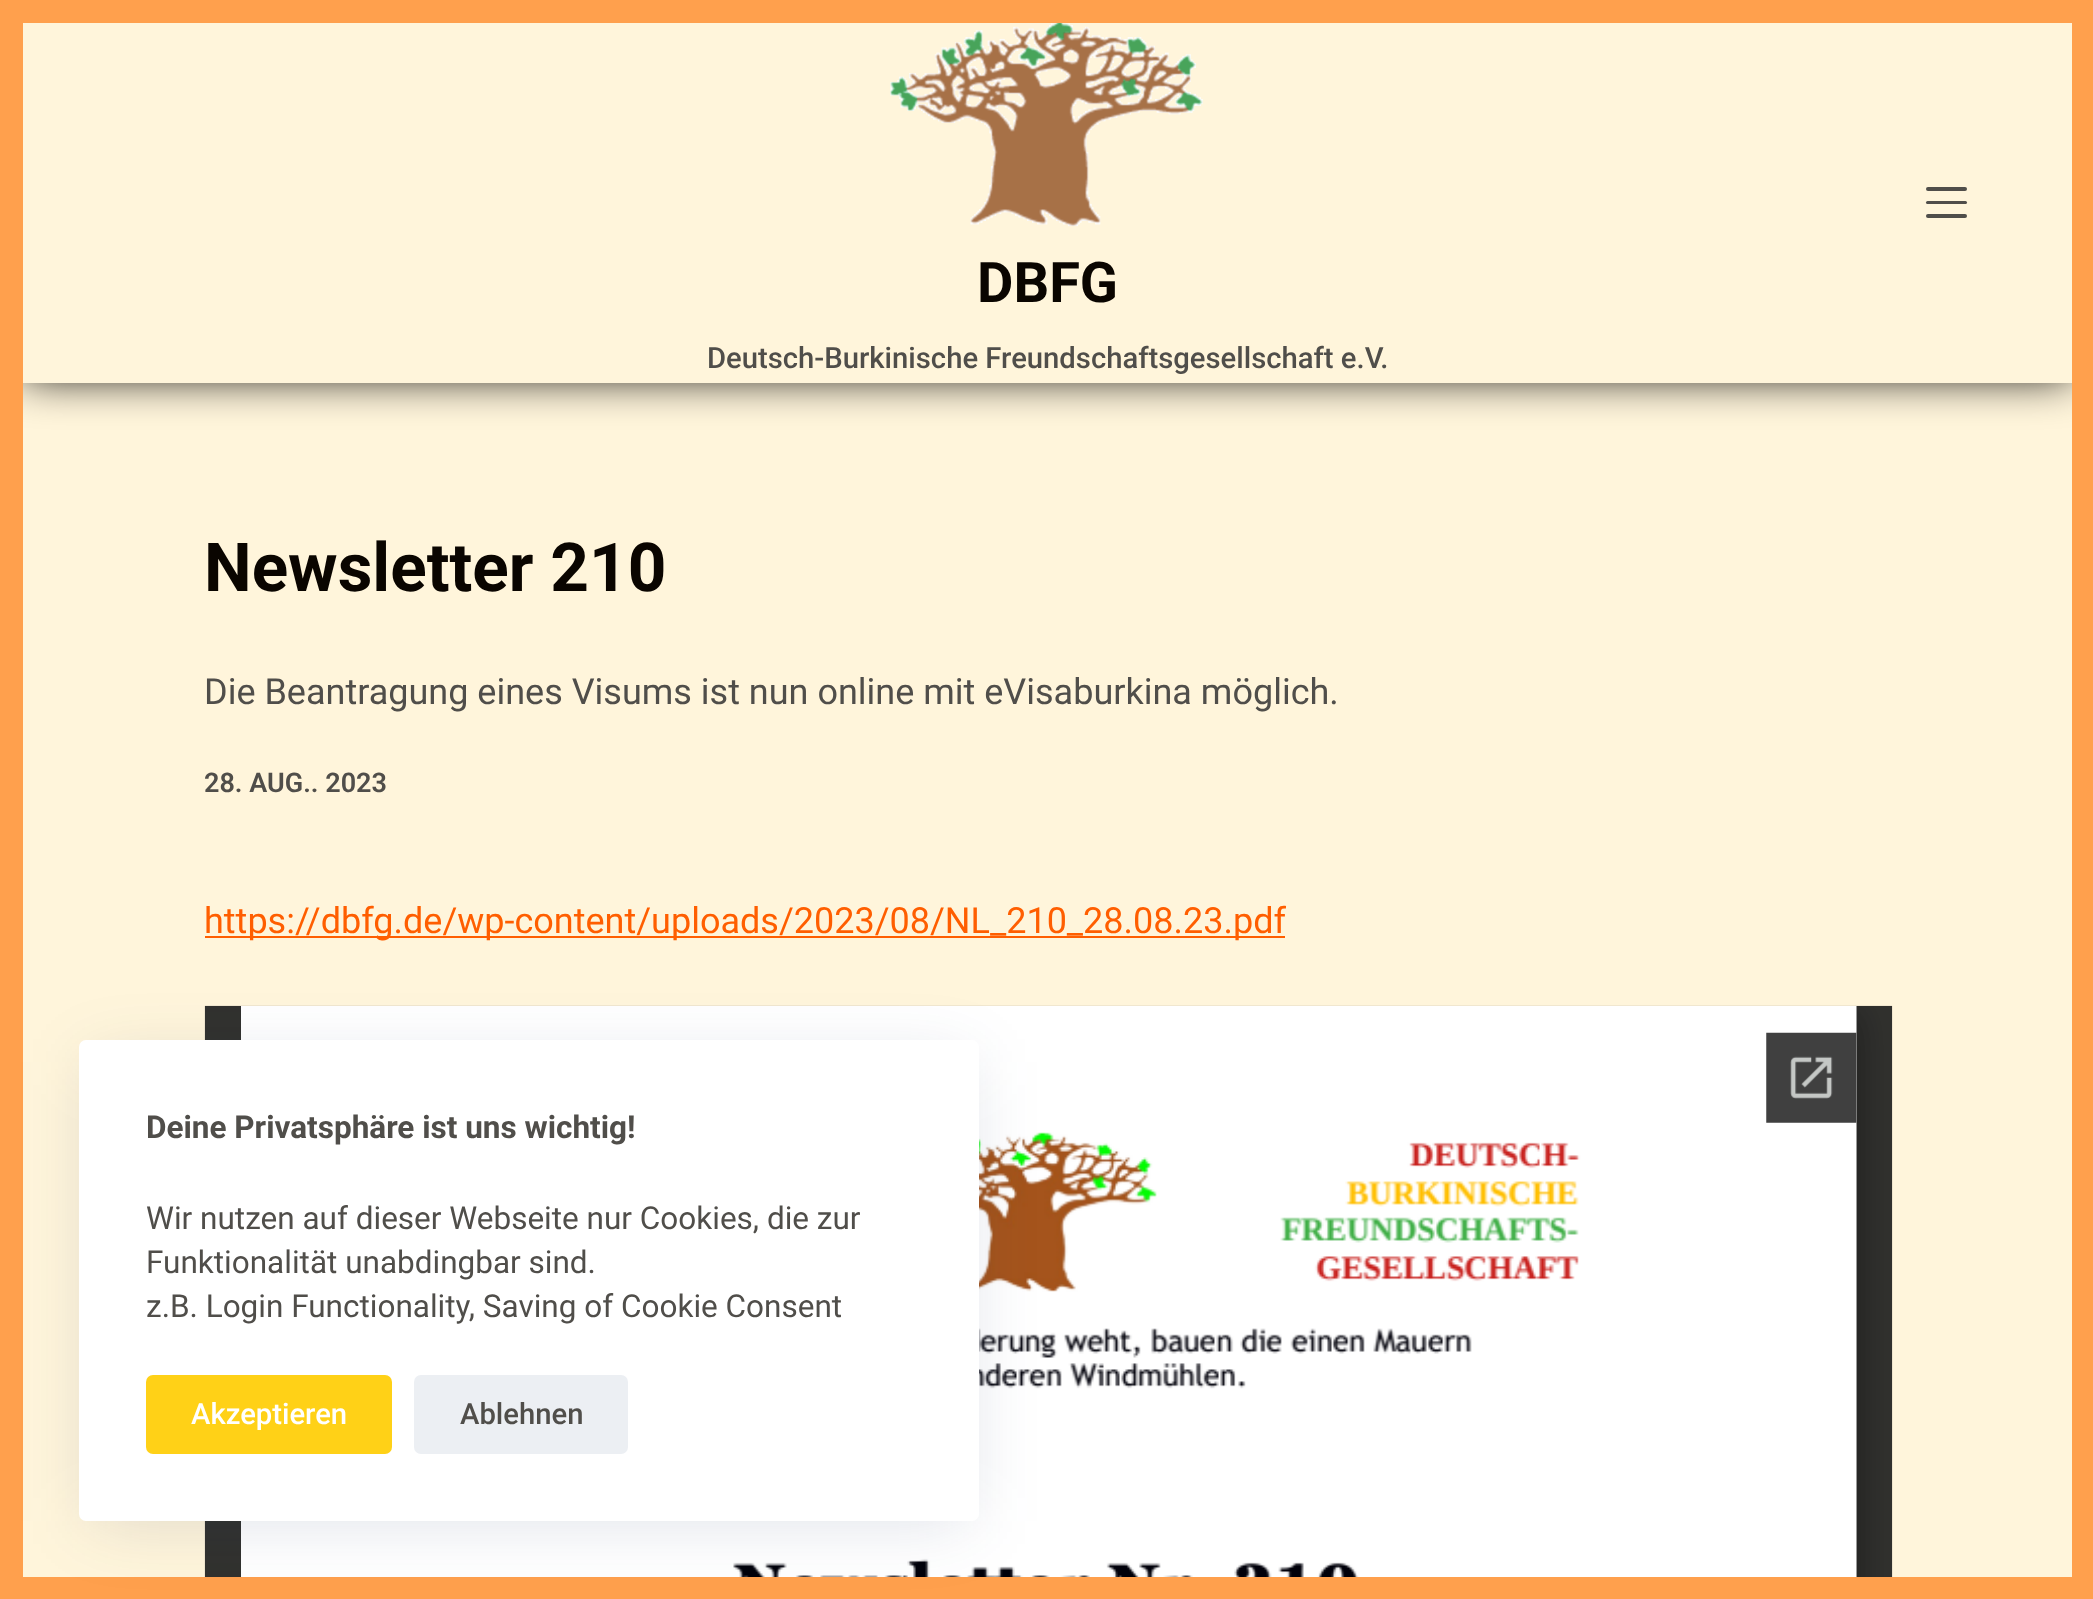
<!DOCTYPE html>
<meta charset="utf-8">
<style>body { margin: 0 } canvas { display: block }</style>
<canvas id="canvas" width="2093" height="1599"></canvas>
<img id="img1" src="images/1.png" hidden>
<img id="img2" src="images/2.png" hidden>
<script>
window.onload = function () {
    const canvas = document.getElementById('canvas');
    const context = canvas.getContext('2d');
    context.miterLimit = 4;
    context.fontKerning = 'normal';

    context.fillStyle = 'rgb(255, 245, 219)';
    context.fillRect(0, 0, 2093, 1599);
    context.strokeStyle = 'rgb(255, 160, 77)';
    context.lineWidth = 23;
    context.strokeRect(11.5, 11.5, 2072, 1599);
    context.save();
    context.beginPath();
    context.rect(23, 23, 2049, 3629);
    context.clip();
    context.fillStyle = 'rgb(0, 0, 0)';
    context.filter = 'blur(22.5px)';
    context.beginPath();
    context.rect(23, 16, 2049, 360);
    context.fill();
    context.filter = 'none';
    context.restore();
    context.fillRect(23, 23, 2049, 360);
    context.fillStyle = 'rgb(80, 78, 74)';
    context.beginPath();
    context.roundRect(1926, 187, 41, 4, 2);
    context.fill();
    context.beginPath();
    context.roundRect(1926, 201, 41, 3, 1.5);
    context.fill();
    context.beginPath();
    context.roundRect(1926, 214, 41, 4, 2);
    context.fill();
    context.drawImage(document.getElementById('img1'), 890, 23, 313, 204);
    context.fillStyle = 'rgb(255, 94, 0)';
    context.fillRect(205, 936, 1080, 2);
    context.drawImage(document.getElementById('img2'), 204, 1005, 1689, 572);
    context.fillStyle = 'rgb(255, 160, 77)';
    context.fillRect(23, 1577, 2049, 22);
    context.fillStyle = 'rgba(34, 56, 101, 0.15)';
    context.filter = 'blur(34px)';
    context.beginPath();
    context.rect(90, 1062, 878, 459);
    context.fill();
    context.filter = 'none';
    context.fillStyle = 'rgb(255, 255, 255)';
    context.beginPath();
    context.roundRect(79, 1040, 900, 481, 7);
    context.fill();
    context.fillStyle = 'rgb(255, 209, 23)';
    context.beginPath();
    context.roundRect(146, 1375, 246, 79, 7);
    context.fill();
    context.fillStyle = 'rgb(236, 239, 243)';
    context.beginPath();
    context.roundRect(414, 1375, 214, 79, 7);
    context.fill();
    context.font = 'bold 56px Roboto';
    context.fillStyle = 'rgb(10, 5, 0)';
    context.fillText('DBFG', 977, 302);
    context.font = '500 29.25px Roboto';
    context.fillStyle = 'rgb(80, 78, 74)';
    context.fillText('Deutsch-Burkinische Freundschaftsgesellschaft e.V.', 707, 368);
    context.font = 'bold 67.5px Roboto';
    context.fillStyle = 'rgb(10, 5, 0)';
    context.fillText('Newsletter 210', 204, 591);
    context.font = '36px Roboto';
    context.fillStyle = 'rgb(80, 78, 74)';
    context.fillText('Die Beantragung eines Visums ist nun online mit eVisaburkina möglich.', 204, 704);
    context.font = '600 27px Roboto';
    context.fillText('28. AUG.. 2023', 204, 792);
    context.font = '36px Roboto';
    context.fillStyle = 'rgb(255, 94, 0)';
    context.fillText('https://dbfg.de/wp-content/uploads/2023/08/NL_210_28.08.23.pdf', 204, 933);
    context.font = 'bold 31.5px Roboto';
    context.fillStyle = 'rgb(80, 78, 74)';
    context.fillText('Deine Privatsphäre ist uns wichtig!', 146, 1138);
    context.font = '31.5px Roboto';
    context.fillText('Wir nutzen auf dieser Webseite nur Cookies, die zur', 146, 1229);
    context.fillText('Funktionalität unabdingbar sind.', 146, 1273);
    context.fillText('z.B. Login Functionality, Saving of Cookie Consent', 146, 1317);
    context.font = '500 29.25px Roboto';
    context.fillStyle = 'rgb(255, 255, 255)';
    context.fillText('Akzeptieren', 191, 1424);
    context.fillStyle = 'rgb(80, 78, 74)';
    context.fillText('Ablehnen', 460, 1424);
};
</script>
